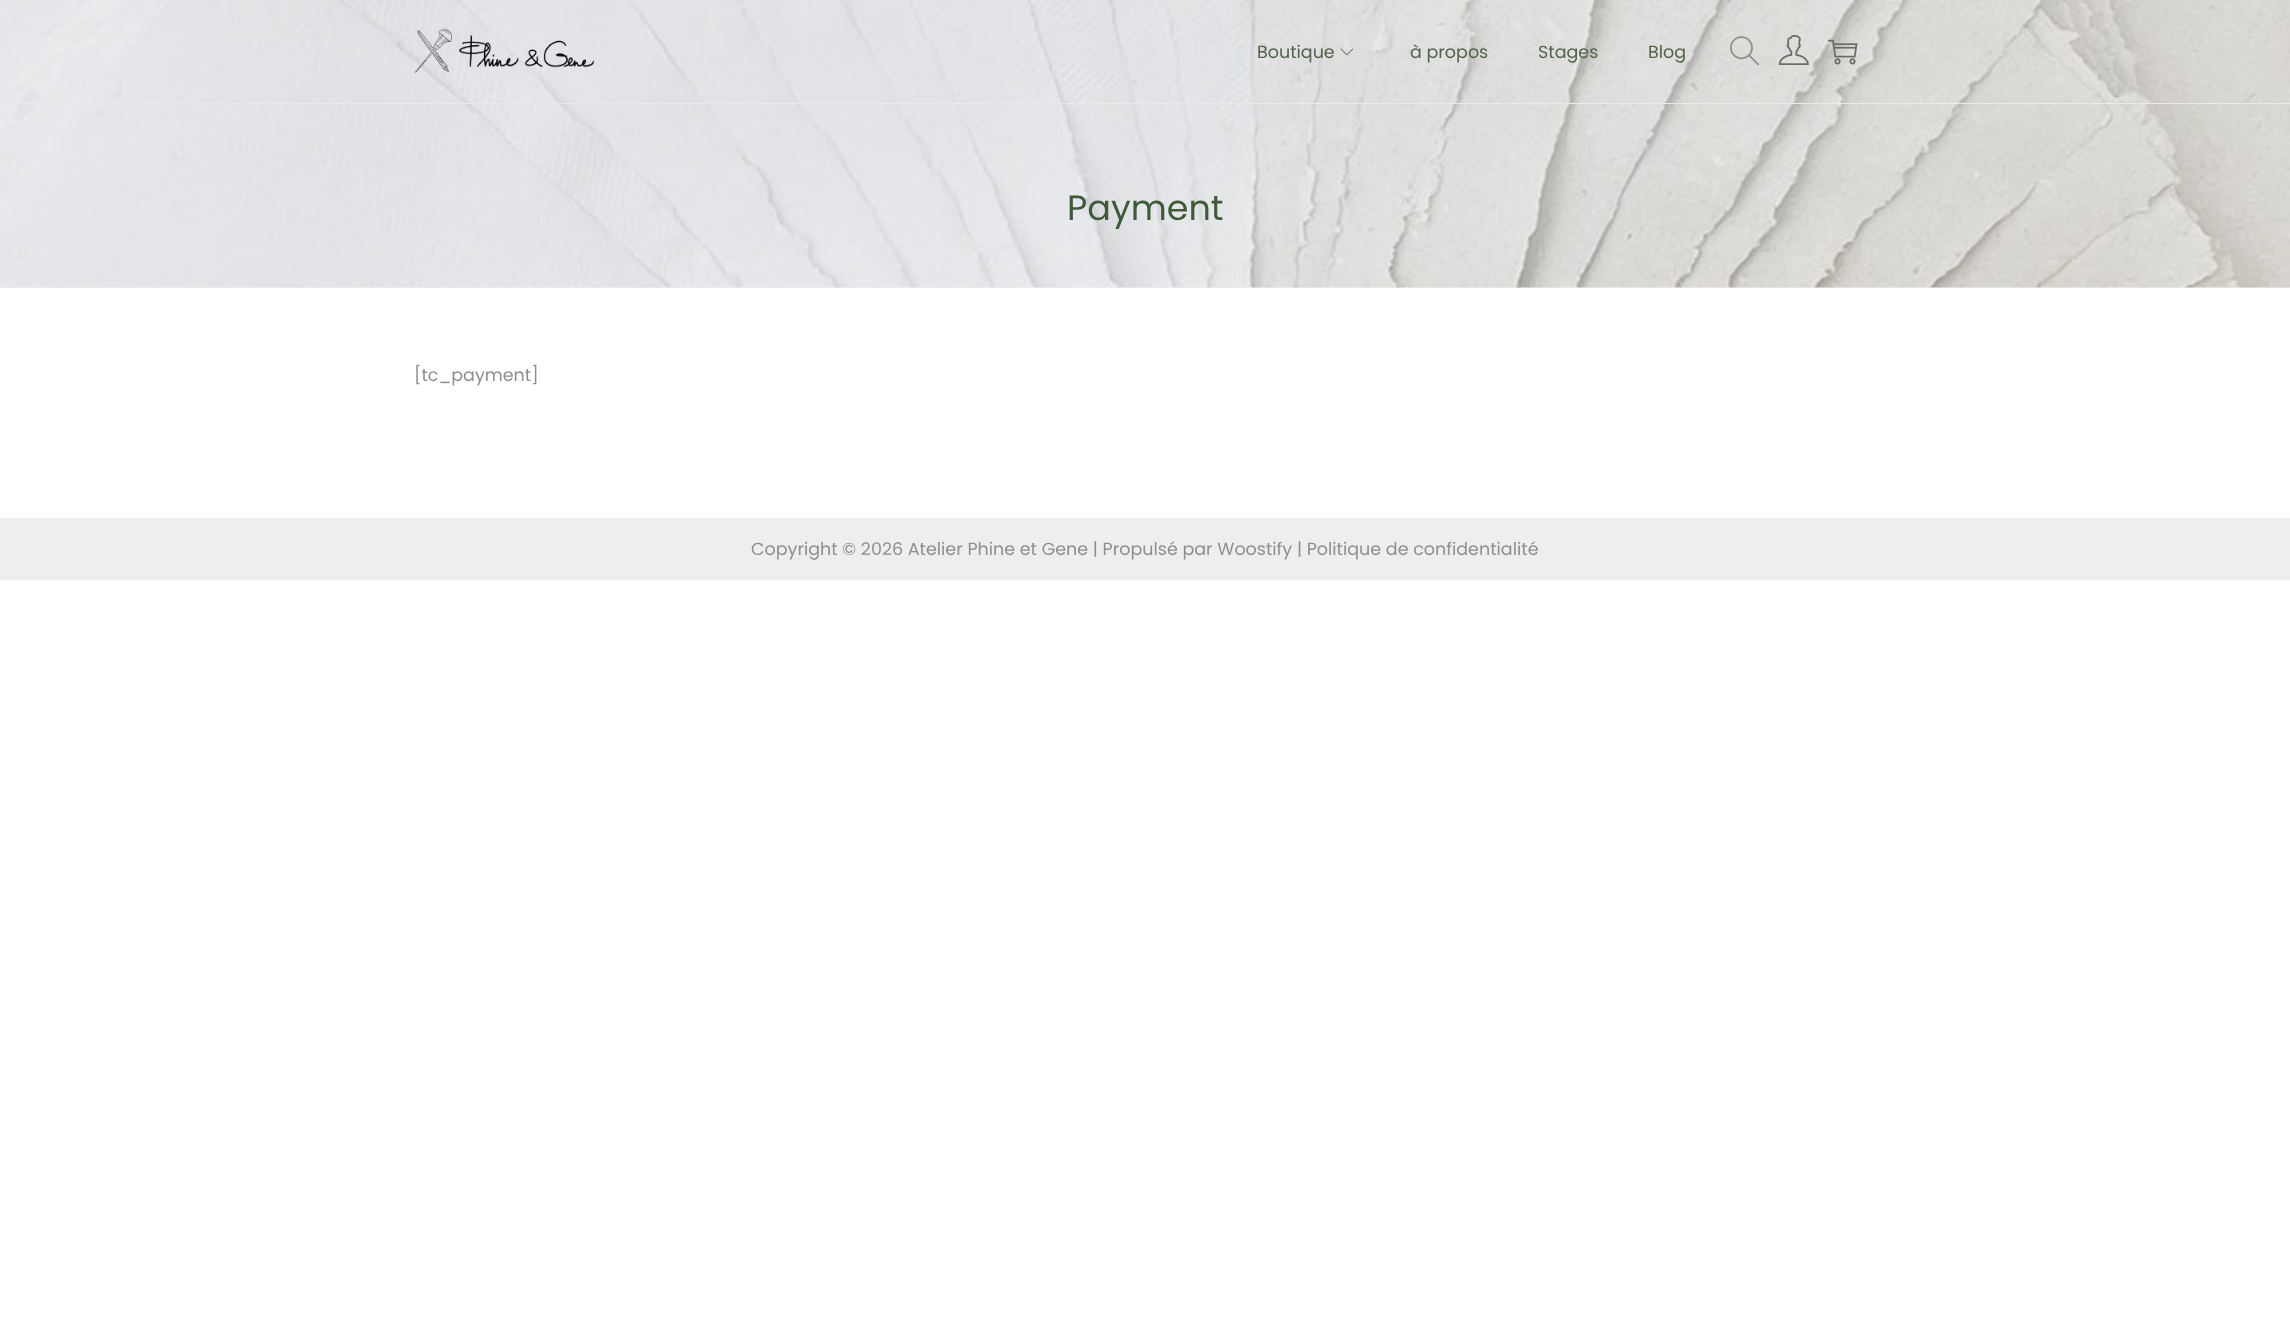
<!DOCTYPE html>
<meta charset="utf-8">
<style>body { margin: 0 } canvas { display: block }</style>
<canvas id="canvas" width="2290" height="1337"></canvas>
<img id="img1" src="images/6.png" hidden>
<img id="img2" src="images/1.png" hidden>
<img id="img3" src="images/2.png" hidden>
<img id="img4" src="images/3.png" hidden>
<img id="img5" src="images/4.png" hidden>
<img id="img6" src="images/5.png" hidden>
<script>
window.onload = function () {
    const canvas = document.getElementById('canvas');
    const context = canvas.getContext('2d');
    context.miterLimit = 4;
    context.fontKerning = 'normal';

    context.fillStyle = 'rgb(255, 255, 255)';
    context.fillRect(0, 0, 2290, 1337);
    context.fillStyle = 'rgb(242, 242, 242)';
    context.fillRect(0, 287, 2290, 1);
    context.drawImage(document.getElementById('img1'), 0, 0, 2290, 288);
    context.fillStyle = 'rgb(234, 234, 234)';
    context.fillRect(0, 103, 2290, 1);
    context.drawImage(document.getElementById('img2'), 415, 28, 179, 45);
    context.drawImage(document.getElementById('img3'), 1340, 48, 14, 8);
    context.drawImage(document.getElementById('img4'), 1730, 36, 30, 30);
    context.drawImage(document.getElementById('img5'), 1779, 35, 30, 30);
    context.drawImage(document.getElementById('img6'), 1828, 39, 30, 26);
    context.fillStyle = 'rgb(238, 238, 236)';
    context.fillRect(0, 518, 2290, 62);
    context.font = '17.5px Poppins';
    context.fillStyle = 'rgb(83, 100, 75)';
    context.fillText('Boutique', 1257, 58);
    context.fillText('à propos', 1410, 58);
    context.fillText('Stages', 1538, 58);
    context.fillText('Blog', 1648, 58);
    context.font = '35px Poppins';
    context.fillStyle = 'rgb(63, 90, 57)';
    context.fillText('Payment', 1067, 220);
    context.font = '17.5px Poppins';
    context.fillStyle = 'rgb(143, 143, 143)';
    context.fillText('[tc_payment]', 414, 381);
    context.fillText('Copyright © 2026 Atelier Phine et Gene | Propulsé par Woostify | Politique de confidentialité', 751, 555);
};
</script>
